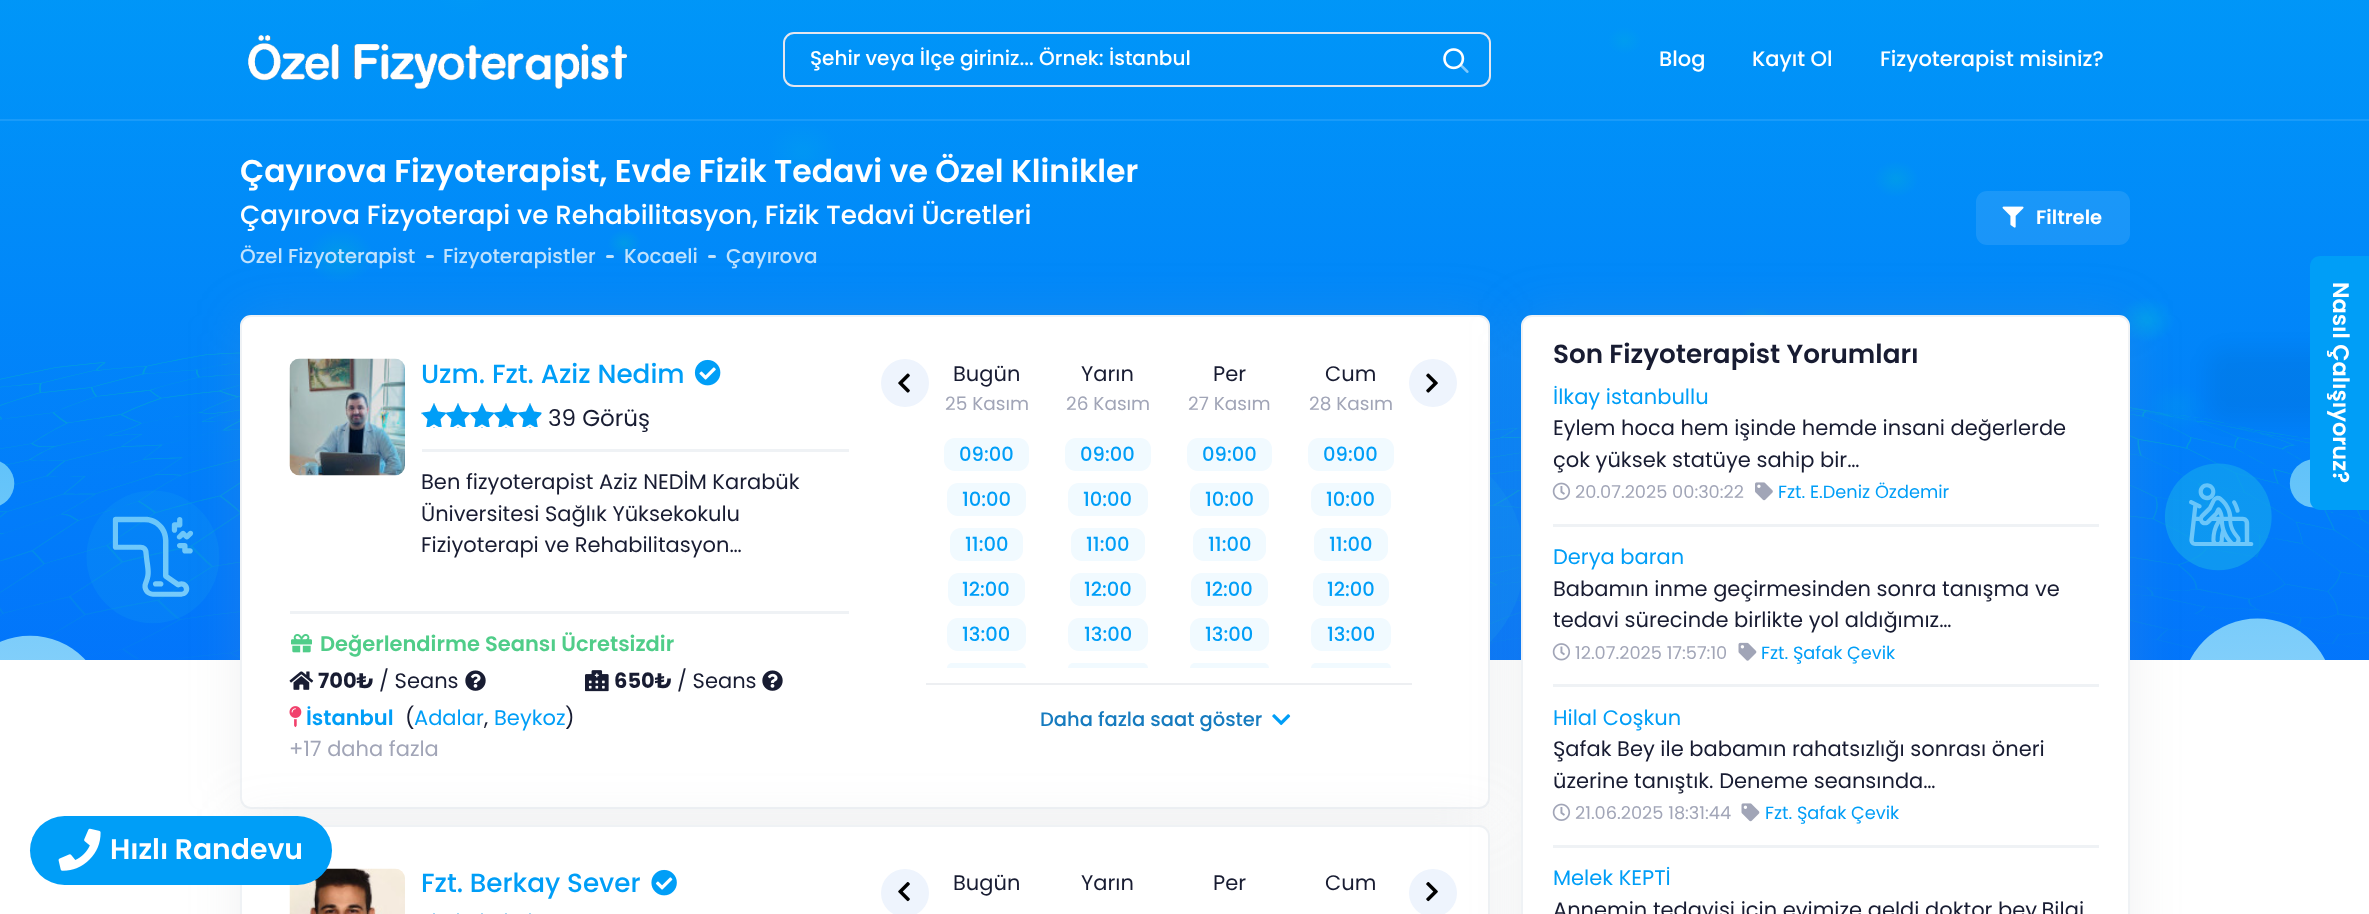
<!DOCTYPE html>
<meta charset="utf-8">
<style>body { margin: 0 } canvas { display: block }</style>
<canvas id="canvas" width="2369" height="914"></canvas>
<img id="img1" src="images/1.png" hidden>
<img id="img2" src="images/2.png" hidden>
<img id="img3" src="images/3.png" hidden>
<img id="img4" src="images/4.png" hidden>
<img id="img5" src="images/18.png" hidden>
<img id="img6" src="images/5.png" hidden>
<img id="img7" src="images/6.png" hidden>
<img id="img8" src="images/7.png" hidden>
<img id="img9" src="images/8.png" hidden>
<img id="img10" src="images/9.png" hidden>
<img id="img11" src="images/10.png" hidden>
<img id="img12" src="images/11.png" hidden>
<img id="img13" src="images/12.png" hidden>
<img id="img14" src="images/13.png" hidden>
<img id="img15" src="images/14.png" hidden>
<img id="img16" src="images/15.png" hidden>
<img id="img17" src="images/16.png" hidden>
<img id="img18" src="images/17.png" hidden>
<img id="img19" src="images/19.png" hidden>
<img id="img20" src="images/20.png" hidden>
<img id="img21" src="images/21.png" hidden>
<img id="img22" src="images/22.png" hidden>
<img id="img23" src="images/23.png" hidden>
<img id="img24" src="images/24.png" hidden>
<img id="img25" src="images/25.png" hidden>
<img id="img26" src="images/26.png" hidden>
<img id="img27" src="images/27.png" hidden>
<img id="img28" src="images/28.png" hidden>
<script>
window.onload = function () {
    const canvas = document.getElementById('canvas');
    const context = canvas.getContext('2d');
    context.miterLimit = 4;
    context.fontKerning = 'normal';

    context.fillStyle = 'rgb(255, 255, 255)';
    context.fillRect(0, 0, 2369, 914);
    context.drawImage(document.getElementById('img1'), 0, 0, 2369, 660);
    context.fillStyle = 'rgb(26, 155, 249)';
    context.fillRect(0, 119, 2369, 2);
    context.drawImage(document.getElementById('img2'), 248, 35, 379, 54);
    context.beginPath();
    context.roundRect(784, 33, 706, 53, 10);
    context.strokeStyle = 'rgb(228, 230, 239)';
    context.lineWidth = 2;
    context.stroke();
    context.drawImage(document.getElementById('img3'), 1443, 48, 26, 25);
    context.fillStyle = 'rgb(192, 226, 253)';
    context.beginPath();
    context.roundRect(426, 255, 8, 3, 1.5);
    context.fill();
    context.beginPath();
    context.roundRect(606, 255, 8, 3, 1.5);
    context.fill();
    context.beginPath();
    context.roundRect(708, 255, 8, 3, 1.5);
    context.fill();
    context.fillStyle = 'rgba(255, 255, 255, 0.1)';
    context.beginPath();
    context.roundRect(1976, 191, 154, 54, 11);
    context.fill();
    context.drawImage(document.getElementById('img4'), 2002, 206, 22, 22);
    context.fillStyle = 'rgba(154, 161, 171, 0.15)';
    context.filter = 'blur(26px)';
    context.beginPath();
    context.roundRect(240, 315, 1250, 494, 11);
    context.fill();
    context.filter = 'none';
    context.fillStyle = 'rgb(255, 255, 255)';
    context.beginPath();
    context.roundRect(241, 316, 1248, 492, 10);
    context.fill();
    context.strokeStyle = 'rgb(239, 242, 245)';
    context.stroke();
    context.fillStyle = 'rgba(154, 161, 171, 0.15)';
    context.filter = 'blur(26px)';
    context.beginPath();
    context.roundRect(240, 825, 1250, 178, 11);
    context.fill();
    context.filter = 'none';
    context.fillStyle = 'rgb(255, 255, 255)';
    context.beginPath();
    context.roundRect(241, 826, 1248, 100, 10);
    context.fill();
    context.stroke();
    context.drawImage(document.getElementById('img5'), 289, 868, 116, 46);
    context.fillStyle = 'rgb(0, 158, 247)';
    context.beginPath();
    context.roundRect(30, 816, 302, 69, 34.5);
    context.fill();
    context.drawImage(document.getElementById('img6'), 58, 828, 43, 43);
    context.drawImage(document.getElementById('img7'), 289, 358, 116, 118);
    context.drawImage(document.getElementById('img8'), 694, 359, 27, 27);
    context.drawImage(document.getElementById('img9'), 421, 403, 121, 25);
    context.drawImage(document.getElementById('img10'), 421, 403, 121, 25);
    context.fillStyle = 'rgb(239, 242, 245)';
    context.fillRect(422, 449, 427, 3);
    context.fillRect(290, 611, 559, 3);
    context.drawImage(document.getElementById('img11'), 291, 633, 21, 20);
    context.drawImage(document.getElementById('img12'), 289, 671, 25, 19);
    context.drawImage(document.getElementById('img13'), 465, 670, 21, 21);
    context.drawImage(document.getElementById('img14'), 585, 670, 24, 22);
    context.drawImage(document.getElementById('img13'), 762, 670, 21, 21);
    context.drawImage(document.getElementById('img15'), 289, 706, 13, 22);
    context.fillStyle = 'rgb(238, 244, 253)';
    context.beginPath();
    context.arc(905, 383, 24, 0, 2 * Math.PI);
    context.fill();
    context.drawImage(document.getElementById('img16'), 898, 373, 12, 20);
    context.fillStyle = 'rgb(241, 250, 255)';
    context.beginPath();
    context.roundRect(944, 438, 85, 33, 11);
    context.fill();
    context.beginPath();
    context.roundRect(947, 483, 79, 33, 11);
    context.fill();
    context.beginPath();
    context.roundRect(950, 528, 73, 33, 11);
    context.fill();
    context.beginPath();
    context.roundRect(948, 573, 77, 33, 11);
    context.fill();
    context.beginPath();
    context.roundRect(947, 618, 79, 33, 11);
    context.fill();
    context.beginPath();
    context.roundRect(947, 663, 79, 5, [11, 11, 0, 0]);
    context.fill();
    context.beginPath();
    context.roundRect(1065, 438, 86, 33, 11);
    context.fill();
    context.beginPath();
    context.roundRect(1068, 483, 80, 33, 11);
    context.fill();
    context.beginPath();
    context.roundRect(1071, 528, 74, 33, 11);
    context.fill();
    context.beginPath();
    context.roundRect(1070, 573, 76, 33, 11);
    context.fill();
    context.beginPath();
    context.roundRect(1068, 618, 80, 33, 11);
    context.fill();
    context.beginPath();
    context.roundRect(1068, 663, 80, 5, [11, 11, 0, 0]);
    context.fill();
    context.beginPath();
    context.roundRect(1187, 438, 85, 33, 11);
    context.fill();
    context.beginPath();
    context.roundRect(1190, 483, 79, 33, 11);
    context.fill();
    context.beginPath();
    context.roundRect(1193, 528, 73, 33, 11);
    context.fill();
    context.beginPath();
    context.roundRect(1191, 573, 77, 33, 11);
    context.fill();
    context.beginPath();
    context.roundRect(1190, 618, 79, 33, 11);
    context.fill();
    context.beginPath();
    context.roundRect(1190, 663, 79, 5, [11, 11, 0, 0]);
    context.fill();
    context.beginPath();
    context.roundRect(1308, 438, 86, 33, 11);
    context.fill();
    context.beginPath();
    context.roundRect(1311, 483, 80, 33, 11);
    context.fill();
    context.beginPath();
    context.roundRect(1314, 528, 74, 33, 11);
    context.fill();
    context.beginPath();
    context.roundRect(1313, 573, 76, 33, 11);
    context.fill();
    context.beginPath();
    context.roundRect(1311, 618, 80, 33, 11);
    context.fill();
    context.beginPath();
    context.roundRect(1311, 663, 80, 5, [11, 11, 0, 0]);
    context.fill();
    context.fillStyle = 'rgb(238, 244, 253)';
    context.beginPath();
    context.arc(1433, 383, 24, 0, 2 * Math.PI);
    context.fill();
    context.drawImage(document.getElementById('img17'), 1426, 373, 12, 20);
    context.fillStyle = 'rgb(237, 239, 242)';
    context.fillRect(926, 683, 486, 2);
    context.drawImage(document.getElementById('img18'), 1272, 714, 19, 12);
    context.drawImage(document.getElementById('img19'), 651, 869, 26, 27);
    context.drawImage(document.getElementById('img20'), 433, 913, 98, 1);
    context.drawImage(document.getElementById('img21'), 433, 913, 98, 1);
    context.fillStyle = 'rgb(238, 244, 253)';
    context.beginPath();
    context.arc(905, 893, 24, 0, 2 * Math.PI);
    context.fill();
    context.drawImage(document.getElementById('img22'), 898, 882, 12, 20);
    context.beginPath();
    context.arc(1433, 893, 24, 0, 2 * Math.PI);
    context.fill();
    context.drawImage(document.getElementById('img23'), 1426, 882, 12, 20);
    context.fillStyle = 'rgba(154, 161, 171, 0.15)';
    context.filter = 'blur(26px)';
    context.beginPath();
    context.roundRect(1521, 315, 609, 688, 11);
    context.fill();
    context.filter = 'none';
    context.fillStyle = 'rgb(255, 255, 255)';
    context.beginPath();
    context.roundRect(1522, 316, 607, 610, 10);
    context.fill();
    context.stroke();
    context.drawImage(document.getElementById('img24'), 1552, 482, 19, 18);
    context.drawImage(document.getElementById('img25'), 1755, 482, 18, 19);
    context.fillStyle = 'rgb(239, 242, 245)';
    context.fillRect(1553, 524, 546, 3);
    context.drawImage(document.getElementById('img26'), 1552, 643, 18, 18);
    context.drawImage(document.getElementById('img27'), 1738, 642, 19, 19);
    context.fillRect(1553, 684, 546, 3);
    context.drawImage(document.getElementById('img24'), 1552, 803, 19, 18);
    context.drawImage(document.getElementById('img28'), 1741, 803, 19, 19);
    context.fillRect(1553, 845, 546, 3);
    context.fillStyle = 'rgba(0, 0, 0, 0.05)';
    context.filter = 'blur(10.5px)';
    context.beginPath();
    context.roundRect(2208, 350, 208, 70, 15);
    context.fill();
    context.filter = 'none';
    context.fillStyle = 'rgb(0, 158, 247)';
    context.beginPath();
    context.moveTo(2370, 256);
    context.lineTo(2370, 510);
    context.lineTo(2320, 510);
    context.bezierCurveTo(2315, 510, 2310, 506, 2310, 500);
    context.lineTo(2310, 266);
    context.bezierCurveTo(2310, 260, 2315, 256, 2320, 256);
    context.closePath();
    context.fill();
    context.font = '500 20px Poppins';
    context.fillStyle = 'rgb(255, 255, 255)';
    context.fillText('Şehir veya İlçe giriniz... Örnek: İstanbul', 810, 65);
    context.font = '500 21px Poppins';
    context.fillText('Blog', 1659, 66);
    context.fillText('Kayıt Ol', 1752, 66);
    context.fillText('Fizyoterapist misiniz?', 1880, 66);
    context.font = '600 31.5px Poppins';
    context.fillText('Çayırova Fizyoterapist, Evde Fizik Tedavi ve Özel Klinikler', 240, 182);
    context.font = '500 26.25px Poppins';
    context.fillText('Çayırova Fizyoterapi ve Rehabilitasyon, Fizik Tedavi Ücretleri', 240, 224);
    context.font = '500 20px Poppins';
    context.fillStyle = 'rgb(192, 226, 253)';
    context.fillText('Özel Fizyoterapist', 240, 263);
    context.fillText('Fizyoterapistler', 443, 263);
    context.fillText('Kocaeli', 624, 263);
    context.fillText('Çayırova', 726, 263);
    context.font = '600 19.5px Poppins';
    context.fillStyle = 'rgb(255, 255, 255)';
    context.fillText('Filtrele', 2036, 224);
    context.font = '600 28.25px Poppins';
    context.fillText('Hızlı Randevu', 110, 859);
    context.font = '500 26.25px Poppins';
    context.fillStyle = 'rgb(0, 158, 247)';
    context.fillText('Uzm. Fzt. Aziz Nedim', 421, 383);
    context.font = '23px Poppins';
    context.fillStyle = 'rgb(24, 28, 50)';
    context.fillText('39 Görüş', 548, 426);
    context.font = '21px Poppins';
    context.fillText('Ben fizyoterapist Aziz NEDİM Karabük', 421, 489);
    context.fillText('Üniversitesi Sağlık Yüksekokulu', 421, 521);
    context.fillText('Fiziyoterapi ve Rehabilitasyon…', 421, 552);
    context.font = '600 21px Poppins';
    context.fillStyle = 'rgb(80, 205, 137)';
    context.fillText('Değerlendirme Seansı Ücretsizdir', 320, 651);
    context.font = 'bold 21px Poppins';
    context.fillStyle = 'rgb(24, 28, 50)';
    context.fillText('700₺', 318, 688);
    context.font = '21px Poppins';
    context.fillText('/ Seans', 379, 688);
    context.font = 'bold 21px Poppins';
    context.fillText('650₺', 614, 688);
    context.font = '21px Poppins';
    context.fillText('/ Seans', 677, 688);
    context.font = '600 21px Poppins';
    context.fillStyle = 'rgb(0, 158, 247)';
    context.fillText('İstanbul', 306, 725);
    context.font = '21px Poppins';
    context.fillStyle = 'rgb(24, 28, 50)';
    context.fillText('(', 405, 725);
    context.fillStyle = 'rgb(0, 158, 247)';
    context.fillText('Adalar', 414, 725);
    context.fillStyle = 'rgb(24, 28, 50)';
    context.fillText(',', 484, 725);
    context.fillStyle = 'rgb(0, 158, 247)';
    context.fillText('Beykoz', 494, 725);
    context.fillStyle = 'rgb(24, 28, 50)';
    context.fillText(')', 565, 725);
    context.fillStyle = 'rgb(161, 165, 183)';
    context.fillText('+17 daha fazla', 289, 756);
    context.fillStyle = 'rgb(24, 28, 50)';
    context.fillText('Bugün', 953, 381);
    context.font = '18.5px Poppins';
    context.fillStyle = 'rgb(161, 165, 183)';
    context.fillText('25 Kasım', 945, 410);
    context.font = '500 19.5px Poppins';
    context.fillStyle = 'rgb(0, 158, 247)';
    context.fillText('09:00', 959, 461);
    context.fillText('10:00', 962, 506);
    context.fillText('11:00', 965, 551);
    context.fillText('12:00', 962, 596);
    context.fillText('13:00', 962, 641);
    context.font = '21px Poppins';
    context.fillStyle = 'rgb(24, 28, 50)';
    context.fillText('Yarın', 1081, 381);
    context.font = '18.5px Poppins';
    context.fillStyle = 'rgb(161, 165, 183)';
    context.fillText('26 Kasım', 1066, 410);
    context.font = '500 19.5px Poppins';
    context.fillStyle = 'rgb(0, 158, 247)';
    context.fillText('09:00', 1080, 461);
    context.fillText('10:00', 1083, 506);
    context.fillText('11:00', 1086, 551);
    context.fillText('12:00', 1084, 596);
    context.fillText('13:00', 1084, 641);
    context.font = '21px Poppins';
    context.fillStyle = 'rgb(24, 28, 50)';
    context.fillText('Per', 1213, 381);
    context.font = '18.5px Poppins';
    context.fillStyle = 'rgb(161, 165, 183)';
    context.fillText('27 Kasım', 1188, 410);
    context.font = '500 19.5px Poppins';
    context.fillStyle = 'rgb(0, 158, 247)';
    context.fillText('09:00', 1202, 461);
    context.fillText('10:00', 1205, 506);
    context.fillText('11:00', 1208, 551);
    context.fillText('12:00', 1205, 596);
    context.fillText('13:00', 1205, 641);
    context.font = '21px Poppins';
    context.fillStyle = 'rgb(24, 28, 50)';
    context.fillText('Cum', 1325, 381);
    context.font = '18.5px Poppins';
    context.fillStyle = 'rgb(161, 165, 183)';
    context.fillText('28 Kasım', 1309, 410);
    context.font = '500 19.5px Poppins';
    context.fillStyle = 'rgb(0, 158, 247)';
    context.fillText('09:00', 1323, 461);
    context.fillText('10:00', 1326, 506);
    context.fillText('11:00', 1329, 551);
    context.fillText('12:00', 1327, 596);
    context.fillText('13:00', 1327, 641);
    context.fillStyle = 'rgb(22, 123, 191)';
    context.fillText('Daha fazla saat göster', 1040, 726);
    context.font = '500 26.25px Poppins';
    context.fillStyle = 'rgb(0, 158, 247)';
    context.fillText('Fzt. Berkay Sever', 421, 892);
    context.font = '21px Poppins';
    context.fillStyle = 'rgb(24, 28, 50)';
    context.fillText('Bugün', 953, 890);
    context.fillText('Yarın', 1081, 890);
    context.fillText('Per', 1213, 890);
    context.fillText('Cum', 1325, 890);
    context.font = '600 26.25px Poppins';
    context.fillText('Son Fizyoterapist Yorumları', 1553, 363);
    context.font = '21px Poppins';
    context.fillStyle = 'rgb(0, 158, 247)';
    context.fillText('İlkay istanbullu', 1553, 404);
    context.fillStyle = 'rgb(24, 28, 50)';
    context.fillText('Eylem hoca hem işinde hemde insani değerlerde', 1553, 435);
    context.fillText('çok yüksek statüye sahip bir…', 1553, 467);
    context.font = '17.75px Poppins';
    context.fillStyle = 'rgb(161, 165, 183)';
    context.fillText('20.07.2025 00:30:22', 1575, 498);
    context.fillStyle = 'rgb(0, 158, 247)';
    context.fillText('Fzt. E.Deniz Özdemir', 1778, 498);
    context.font = '21px Poppins';
    context.fillText('Derya baran', 1553, 564);
    context.fillStyle = 'rgb(24, 28, 50)';
    context.fillText('Babamın inme geçirmesinden sonra tanışma ve', 1553, 596);
    context.fillText('tedavi sürecinde birlikte yol aldığımız…', 1553, 627);
    context.font = '17.75px Poppins';
    context.fillStyle = 'rgb(161, 165, 183)';
    context.fillText('12.07.2025 17:57:10', 1575, 659);
    context.fillStyle = 'rgb(0, 158, 247)';
    context.fillText('Fzt. Şafak Çevik', 1761, 659);
    context.font = '21px Poppins';
    context.fillText('Hilal Coşkun', 1553, 725);
    context.fillStyle = 'rgb(24, 28, 50)';
    context.fillText('Şafak Bey ile babamın rahatsızlığı sonrası öneri', 1553, 756);
    context.fillText('üzerine tanıştık. Deneme seansında…', 1553, 788);
    context.font = '17.75px Poppins';
    context.fillStyle = 'rgb(161, 165, 183)';
    context.fillText('21.06.2025 18:31:44', 1575, 819);
    context.fillStyle = 'rgb(0, 158, 247)';
    context.fillText('Fzt. Şafak Çevik', 1765, 819);
    context.font = '21px Poppins';
    context.fillText('Melek KEPTİ', 1553, 885);
    context.fillStyle = 'rgb(24, 28, 50)';
    context.fillText('Annemin tedavisi için evimize geldi doktor bey.Bilgi', 1553, 917);
    context.font = '600 22.5px Poppins';
    context.fillStyle = 'rgb(255, 255, 255)';
    context.save();
    context.translate(2333, 282);
    context.rotate(90 * Math.PI / 180);
    context.fillText('Nasıl Çalışıyoruz?', 0, 0);
    context.restore();
};
</script>
